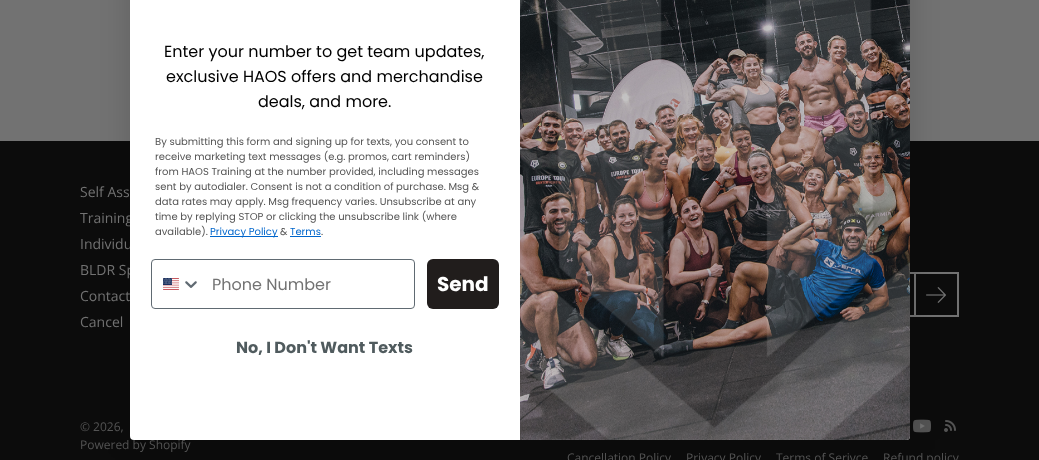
<!DOCTYPE html>
<meta charset="utf-8">
<style>body { margin: 0 } canvas { display: block }</style>
<canvas id="canvas" width="1039" height="460"></canvas>
<img id="img1" src="images/4.png" hidden>
<img id="img2" src="images/5.png" hidden>
<img id="img3" src="images/6.png" hidden>
<img id="img4" src="images/3.png" hidden>
<img id="img5" src="images/2.png" hidden>
<img id="img6" src="images/1.png" hidden>
<script>
window.onload = function () {
    const canvas = document.getElementById('canvas');
    const context = canvas.getContext('2d');
    context.miterLimit = 4;
    context.fontKerning = 'normal';

    context.fillStyle = 'rgb(114, 114, 114)';
    context.fillRect(0, 0, 1039, 460);
    context.fillStyle = 'rgb(12, 12, 12)';
    context.fillRect(0, 141, 1039, 319);
    context.strokeStyle = 'rgb(114, 114, 114)';
    context.lineWidth = 2;
    context.strokeRect(560, 273, 398, 43);
    context.strokeRect(915, 273, 43, 43);
    context.drawImage(document.getElementById('img1'), 926, 287, 20, 16);
    context.drawImage(document.getElementById('img2'), 913, 419, 18, 14);
    context.drawImage(document.getElementById('img3'), 944, 420, 12, 12);
    context.fillStyle = 'rgba(0, 0, 0, 0.15)';
    context.filter = 'blur(15px)';
    context.beginPath();
    context.roundRect(130, -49, 780, 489, 4);
    context.fill();
    context.filter = 'none';
    context.font = '14px Open Sans';
    context.fillStyle = 'rgb(114, 114, 114)';
    context.fillText('Self Ass', 80, 197);
    context.fillText('Training', 80, 223);
    context.fillText('Individu', 80, 249);
    context.fillText('BLDR Sp', 80, 275);
    context.fillText('Contact', 80, 301);
    context.fillText('Cancel', 80, 327);
    context.font = '12px Open Sans';
    context.fillStyle = 'rgb(84, 84, 84)';
    context.fillText('© 2026,', 80, 431);
    context.fillText('Powered by Shopify', 80, 449);
    context.fillStyle = 'rgb(255, 255, 255)';
    context.beginPath();
    context.roundRect(130, 0, 780, 440, [0, 0, 4, 4]);
    context.fill();
    context.drawImage(document.getElementById('img4'), 520, 0, 390, 440);
    context.font = 'bold 16px Poppins';
    context.fillStyle = 'rgb(80, 91, 94)';
    context.fillText('No, I Don\'t Want Texts', 236, 353);
    context.fillStyle = 'rgb(33, 29, 28)';
    context.beginPath();
    context.roundRect(427, 259, 72, 50, 6);
    context.fill();
    context.font = 'bold 20px Poppins';
    context.fillStyle = 'rgb(255, 255, 255)';
    context.fillText('Send', 437, 291);
    context.beginPath();
    context.roundRect(151.5, 259.5, 263, 49, 3.5);
    context.strokeStyle = 'rgb(96, 106, 114)';
    context.lineWidth = 1;
    context.stroke();
    context.drawImage(document.getElementById('img5'), 185, 281, 12, 7);
    context.font = '16px Poppins';
    context.fillStyle = 'rgb(114, 114, 114)';
    context.fillText('Phone Number', 212, 290);
    context.drawImage(document.getElementById('img6'), 163, 278, 16, 12);
    context.font = '10px Poppins';
    context.fillStyle = 'rgb(84, 84, 84)';
    context.fillText('.', 321, 235);
    context.fillStyle = 'rgb(0, 102, 204)';
    context.fillText('Terms', 290, 235);
    context.fillRect(290, 236, 31, 1);
    context.fillStyle = 'rgb(84, 84, 84)';
    context.fillText('&', 280, 235);
    context.fillStyle = 'rgb(0, 102, 204)';
    context.fillRect(210, 236, 68, 1);
    context.fillText('Privacy Policy', 210, 235);
    context.fillStyle = 'rgb(84, 84, 84)';
    context.fillText('available).', 155, 235);
    context.fillText('time by replying STOP or clicking the unsubscribe link (where', 155, 220);
    context.fillText('data rates may apply. Msg frequency varies. Unsubscribe at any', 155, 205);
    context.fillText('sent by autodialer. Consent is not a condition of purchase. Msg &', 155, 190);
    context.fillText('from HAOS Training at the number provided, including messages', 155, 175);
    context.fillText('receive marketing text messages (e.g. promos, cart reminders)', 155, 160);
    context.fillText('By submitting this form and signing up for texts, you consent to', 155, 145);
    context.font = '16px Poppins';
    context.fillStyle = 'rgb(0, 0, 0)';
    context.fillText('deals, and more.', 258, 107);
    context.fillText('exclusive HAOS offers and merchandise', 166, 82);
    context.fillText('Enter your number to get team updates,', 164, 57);
    context.font = '12px Open Sans';
    context.fillStyle = 'rgb(84, 84, 84)';
    context.fillText('Cancellation Policy', 567, 462);
    context.fillText('Privacy Policy', 686, 462);
    context.fillText('Terms of Serivce', 776, 462);
    context.fillText('Refund policy', 883, 462);
};
</script>
